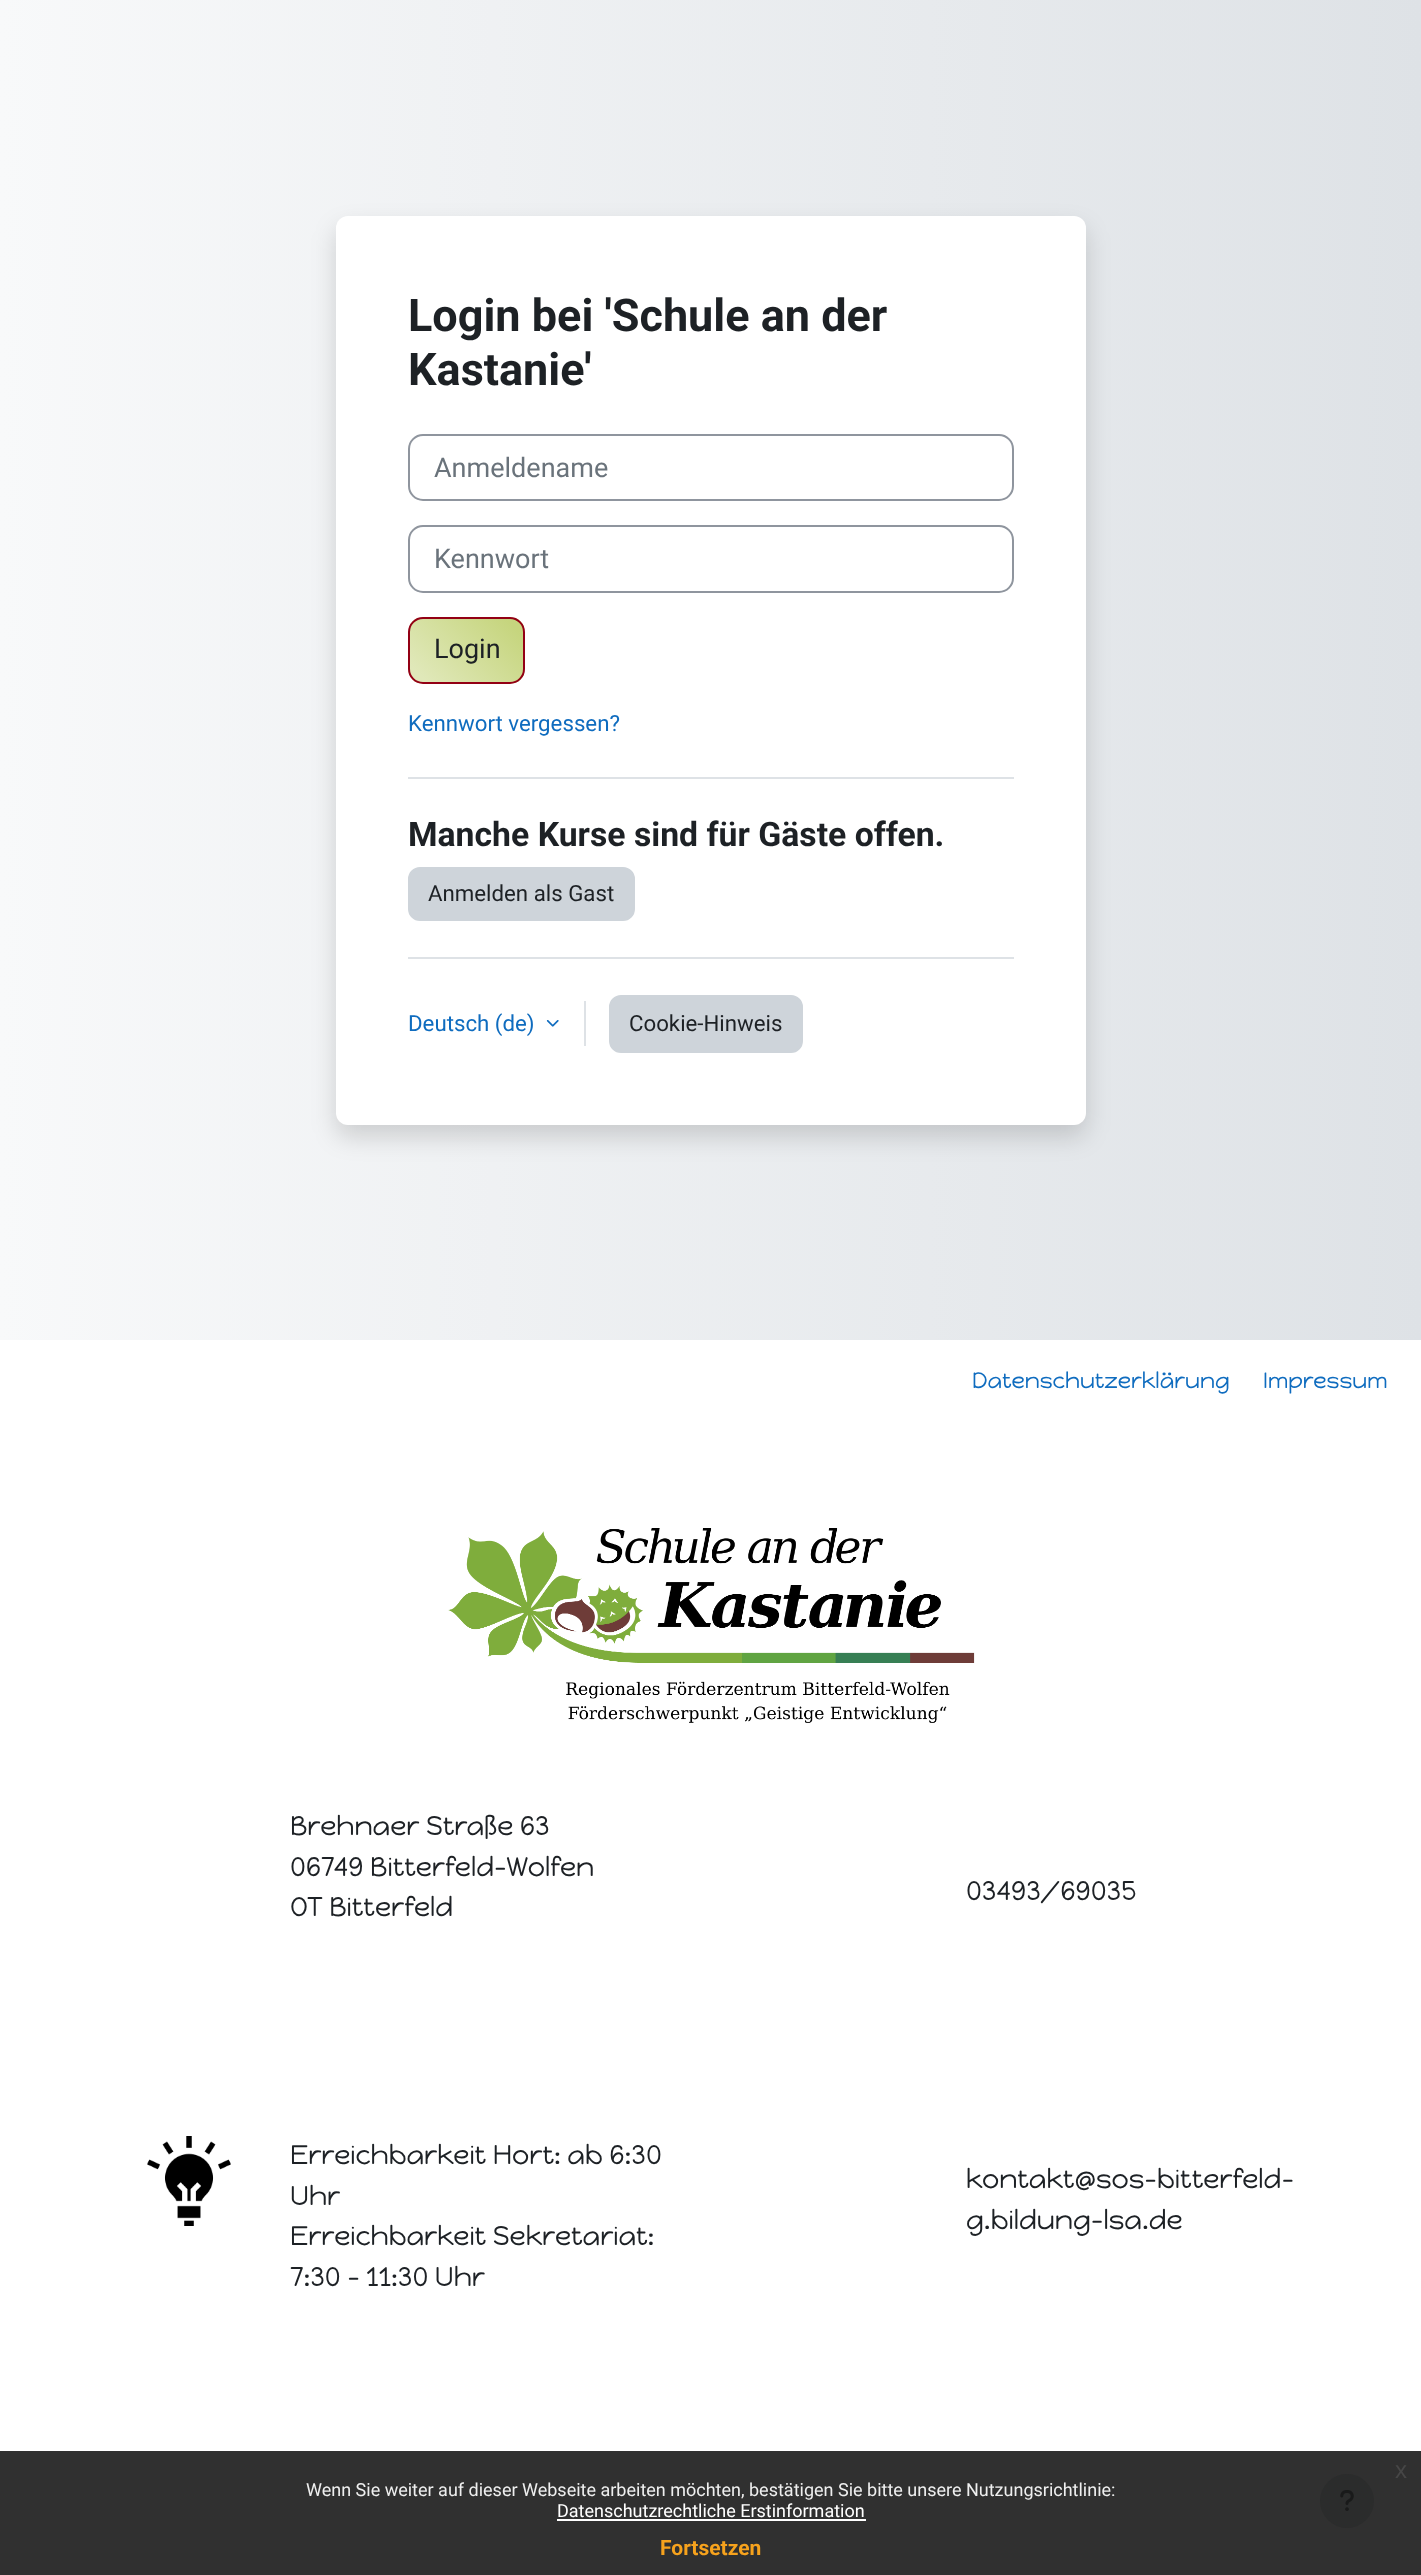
<!DOCTYPE html>
<meta charset="utf-8">
<style>body { margin: 0 } canvas { display: block }</style>
<canvas id="canvas" width="1421" height="2575"></canvas>
<img id="img1" src="images/1.png" hidden>
<img id="img2" src="images/2.png" hidden>
<img id="img3" src="images/3.png" hidden>
<img id="img4" src="images/4.png" hidden>
<script>
window.onload = function () {
    const canvas = document.getElementById('canvas');
    const context = canvas.getContext('2d');
    context.miterLimit = 4;
    context.fontKerning = 'normal';
    let gradient;

    context.fillStyle = 'rgb(255, 255, 255)';
    context.fillRect(0, 0, 1421, 2575);
    context.fillStyle = 'rgb(48, 48, 48)';
    context.fillRect(0, 2451, 1421, 124);
    gradient = context.createLinearGradient(0, 670, 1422, 670);
    gradient.addColorStop(0, 'rgb(248, 249, 250)');
    gradient.addColorStop(1, 'rgb(222, 226, 230)');
    context.fillStyle = gradient;
    context.fillRect(0, 0, 1421, 1340);
    context.fillStyle = 'rgba(0, 0, 0, 0.15)';
    context.filter = 'blur(12px)';
    context.beginPath();
    context.roundRect(336, 228, 750, 909, 12);
    context.fill();
    context.filter = 'none';
    context.fillStyle = 'rgb(255, 255, 255)';
    context.beginPath();
    context.roundRect(336, 216, 750, 909, 12);
    context.fill();
    context.beginPath();
    context.roundRect(409, 435, 604, 65, 14);
    context.strokeStyle = 'rgb(143, 149, 158)';
    context.lineWidth = 2;
    context.stroke();
    context.beginPath();
    context.roundRect(409, 526, 604, 66, 14);
    context.stroke();
    context.save();
    context.beginPath();
    context.roundRect(408, 617, 117, 67, 15);
    context.clip();
    gradient = context.createLinearGradient(422, 695, 511, 606);
    gradient.addColorStop(0.1, 'rgb(224, 232, 185)');
    gradient.addColorStop(0.9, 'rgb(198, 213, 126)');
    context.fillStyle = gradient;
    context.fillRect(410, 618, 114, 65);
    context.restore();
    context.beginPath();
    context.roundRect(409, 618, 115, 65, 14);
    context.strokeStyle = 'rgb(147, 0, 20)';
    context.stroke();
    context.fillStyle = 'rgb(222, 226, 230)';
    context.fillRect(408, 777, 606, 2);
    context.fillStyle = 'rgb(206, 212, 218)';
    context.beginPath();
    context.roundRect(409, 868, 225, 52, 11);
    context.fill();
    context.strokeStyle = 'rgb(206, 212, 218)';
    context.stroke();
    context.fillStyle = 'rgb(222, 226, 230)';
    context.fillRect(408, 957, 606, 2);
    context.drawImage(document.getElementById('img1'), 546, 1020, 13, 7);
    context.fillRect(584, 1001, 2, 45);
    context.fillStyle = 'rgb(206, 212, 218)';
    context.beginPath();
    context.roundRect(610, 996, 192, 56, 11);
    context.fill();
    context.stroke();
    context.drawImage(document.getElementById('img2'), 448, 1528, 527, 195);
    context.drawImage(document.getElementById('img3'), 147, 2136, 84, 90);
    context.fillStyle = 'rgb(255, 255, 255)';
    context.fillRect(557, 2519, 309, 2);
    context.fillStyle = 'rgb(43, 44, 44)';
    context.beginPath();
    context.arc(1347, 2501, 27, 0, 2 * Math.PI);
    context.fill();
    context.drawImage(document.getElementById('img4'), 1340, 2490, 14, 21);
    context.font = 'bold 45px Roboto';
    context.fillStyle = 'rgb(29, 33, 37)';
    context.fillText('Login bei \'Schule an der', 408, 331);
    context.fillText('Kastanie\'', 408, 385);
    context.font = '27px Roboto';
    context.fillStyle = 'rgb(106, 115, 123)';
    context.fillText('Anmeldename', 434, 477);
    context.fillText('Kennwort', 434, 568);
    context.fillStyle = 'rgb(29, 33, 37)';
    context.fillText('Login', 434, 658);
    context.font = '22.25px Roboto';
    context.fillStyle = 'rgb(15, 108, 191)';
    context.fillText('Kennwort vergessen?', 408, 731);
    context.font = 'bold 33.75px Roboto';
    context.fillStyle = 'rgb(29, 33, 37)';
    context.fillText('Manche Kurse sind für Gäste offen.', 408, 846);
    context.font = '22.25px Roboto';
    context.fillText('Anmelden als Gast', 428, 901);
    context.fillStyle = 'rgb(15, 108, 191)';
    context.fillText('Deutsch (de)', 408, 1031);
    context.fillStyle = 'rgb(29, 33, 37)';
    context.fillText('Cookie-Hinweis', 629, 1031);
    context.font = '22.25px Happy Monkey';
    context.fillStyle = 'rgb(15, 108, 191)';
    context.fillText('Datenschutzerklärung', 972, 1388);
    context.fillText('Impressum', 1263, 1388);
    context.font = '27px Happy Monkey';
    context.fillStyle = 'rgb(29, 33, 37)';
    context.fillText('Brehnaer Straße 63', 290, 1835);
    context.fillText('06749 Bitterfeld-Wolfen', 290, 1876);
    context.fillText('OT Bitterfeld', 290, 1916);
    context.fillText('Erreichbarkeit Hort: ab 6:30', 290, 2164);
    context.fillText('Uhr', 290, 2205);
    context.fillText('Erreichbarkeit Sekretariat:', 290, 2245);
    context.fillText('7:30 - 11:30 Uhr', 290, 2286);
    context.fillText('03493/69035', 966, 1900);
    context.fillText('kontakt@sos-bitterfeld-', 966, 2188);
    context.fillText('g.bildung-lsa.de', 966, 2229);
    context.font = '24px Liberation Sans';
    context.fillStyle = 'rgb(71, 71, 71)';
    context.fillText('x', 1395, 2478);
    context.font = '18px Roboto';
    context.fillStyle = 'rgb(239, 239, 239)';
    context.fillText('Wenn Sie weiter auf dieser Webseite arbeiten möchten, bestätigen Sie bitte unsere Nutzungsrichtlinie:', 306, 2496);
    context.fillStyle = 'rgb(255, 255, 255)';
    context.fillText('Datenschutzrechtliche Erstinformation', 557, 2517);
    context.font = 'bold 21px Roboto';
    context.fillStyle = 'rgb(246, 162, 29)';
    context.fillText('Fortsetzen', 660, 2555);
};
</script>
